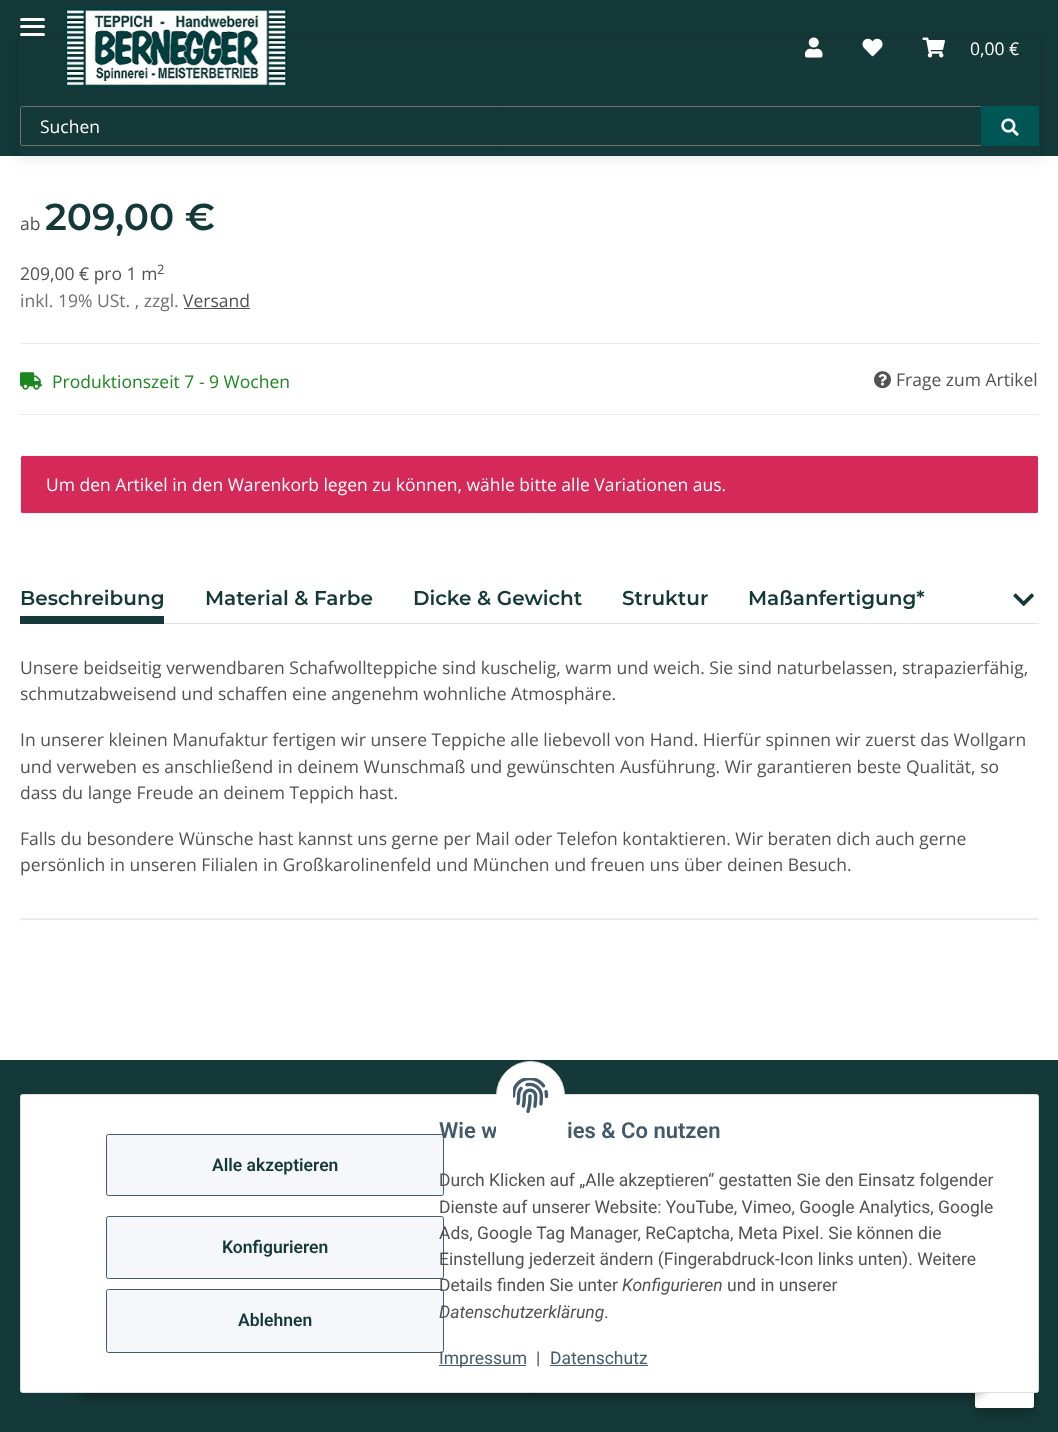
<!DOCTYPE html>
<meta charset="utf-8">
<style>body { margin: 0 } canvas { display: block }</style>
<canvas id="canvas" width="1058" height="1432"></canvas>
<img id="img1" src="images/1.png" hidden>
<img id="img2" src="images/2.png" hidden>
<img id="img3" src="images/3.png" hidden>
<img id="img4" src="images/4.png" hidden>
<img id="img5" src="images/5.png" hidden>
<img id="img6" src="images/6.png" hidden>
<img id="img7" src="images/7.png" hidden>
<img id="img8" src="images/8.png" hidden>
<img id="img9" src="images/9.png" hidden>
<script>
window.onload = function () {
    const canvas = document.getElementById('canvas');
    const context = canvas.getContext('2d');
    context.miterLimit = 4;
    context.fontKerning = 'normal';

    context.fillStyle = 'rgb(21, 56, 56)';
    context.fillRect(0, 0, 1058, 1432);
    context.fillStyle = 'rgb(255, 255, 255)';
    context.fillRect(0, 156, 1058, 904);
    context.fillStyle = 'rgba(0, 0, 0, 0.06)';
    context.filter = 'blur(5.5px)';
    context.beginPath();
    context.rect(15, 35, 1029, 126);
    context.fill();
    context.filter = 'none';
    context.fillStyle = 'rgb(21, 56, 56)';
    context.fillRect(19, 39, 1021, 117);
    context.fillStyle = 'rgb(255, 255, 255)';
    context.beginPath();
    context.roundRect(20, 25, 25, 3, 1.5);
    context.fill();
    context.beginPath();
    context.roundRect(20, 18, 25, 3, 1.5);
    context.fill();
    context.beginPath();
    context.roundRect(20, 33, 25, 3, 1.5);
    context.fill();
    context.drawImage(document.getElementById('img1'), 65, 7, 223, 81);
    context.drawImage(document.getElementById('img2'), 805, 37, 18, 21);
    context.drawImage(document.getElementById('img3'), 862, 38, 21, 19);
    context.drawImage(document.getElementById('img4'), 922, 37, 23, 21);
    context.beginPath();
    context.roundRect(20.5, 106.5, 962, 39, 2);
    context.strokeStyle = 'rgb(112, 112, 112)';
    context.stroke();
    context.fillStyle = 'rgb(0, 85, 85)';
    context.fillRect(981, 106, 58, 40);
    context.drawImage(document.getElementById('img5'), 1001, 118, 18, 18);
    context.fillStyle = 'rgb(82, 82, 82)';
    context.fillRect(184, 308, 66, 1);
    context.fillStyle = 'rgb(235, 235, 235)';
    context.fillRect(20, 343, 1019, 1);
    context.fillRect(20, 414, 1019, 1);
    context.drawImage(document.getElementById('img6'), 20, 372, 22, 18);
    context.drawImage(document.getElementById('img7'), 874, 371, 17, 18);
    context.fillStyle = 'rgb(213, 42, 89)';
    context.beginPath();
    context.roundRect(20.5, 455.5, 1018, 58, 2);
    context.fill();
    context.strokeStyle = 'rgb(245, 247, 250)';
    context.stroke();
    context.fillStyle = 'rgb(222, 226, 230)';
    context.fillRect(164, 623, 875, 1);
    context.fillStyle = 'rgb(21, 56, 56)';
    context.fillRect(20, 616, 144, 8);
    context.drawImage(document.getElementById('img8'), 1013, 593, 21, 13);
    context.fillStyle = 'rgb(235, 235, 235)';
    context.fillRect(20, 918, 1019, 1);
    context.fillRect(1038, 918, 1, 3);
    context.fillRect(20, 919, 1019, 1);
    context.fillRect(20, 918, 1, 3);
    context.fillStyle = 'rgba(0, 0, 0, 0.2)';
    context.filter = 'blur(5px)';
    context.beginPath();
    context.roundRect(975, 1358, 59, 55, 2.5);
    context.fill();
    context.filter = 'none';
    context.fillStyle = 'rgb(255, 255, 255)';
    context.beginPath();
    context.roundRect(975, 1353, 59, 55, 2.5);
    context.fill();
    context.fillStyle = 'rgba(0, 0, 0, 0.45)';
    context.filter = 'blur(6px)';
    context.beginPath();
    context.roundRect(73, 1356, 913, 40, 20);
    context.fill();
    context.filter = 'none';
    context.fillStyle = 'rgb(255, 255, 255)';
    context.beginPath();
    context.roundRect(20.5, 1094.5, 1018, 298, 2);
    context.fill();
    context.strokeStyle = 'rgb(221, 221, 221)';
    context.stroke();
    context.fillStyle = 'rgb(245, 247, 250)';
    context.beginPath();
    context.roundRect(106.5, 1134.5, 337, 61, 2);
    context.fill();
    context.strokeStyle = 'rgb(67, 90, 107)';
    context.stroke();
    context.beginPath();
    context.roundRect(106.5, 1216.5, 337, 62, 2);
    context.fill();
    context.stroke();
    context.beginPath();
    context.roundRect(106.5, 1289.5, 337, 63, 2);
    context.fill();
    context.stroke();
    context.fillStyle = 'rgb(67, 90, 107)';
    context.fillRect(439, 1365, 87, 1);
    context.fillRect(550, 1365, 98, 1);
    context.font = '17.5px Open Sans';
    context.fillStyle = 'rgb(255, 255, 255)';
    context.fillText('0,00 €', 970, 55);
    context.fillText('Suchen', 40, 133);
    context.fillStyle = 'rgb(82, 82, 82)';
    context.fillText('ab', 20, 230);
    context.font = '600 37.5px Montserrat';
    context.fillStyle = 'rgb(21, 56, 56)';
    context.fillText('209,00 €', 45, 230);
    context.font = '17.5px Open Sans';
    context.fillStyle = 'rgb(82, 82, 82)';
    context.fillText('209,00 € pro 1 m', 20, 280);
    context.font = '13px Open Sans';
    context.fillText('2', 157, 274);
    context.font = '17.5px Open Sans';
    context.fillStyle = 'rgb(112, 112, 112)';
    context.fillText('inkl. 19% USt. , zzgl.', 20, 307);
    context.fillStyle = 'rgb(82, 82, 82)';
    context.fillText('Versand', 183, 307);
    context.fillStyle = 'rgb(28, 135, 30)';
    context.fillText('Produktionszeit 7 - 9 Wochen', 52, 388);
    context.fillStyle = 'rgb(82, 82, 82)';
    context.fillText('Frage zum Artikel', 896, 386);
    context.fillStyle = 'rgb(255, 255, 255)';
    context.fillText('Um den Artikel in den Warenkorb legen zu können, wähle bitte alle Variationen aus.', 46, 491);
    context.font = '600 20px Montserrat';
    context.fillStyle = 'rgb(21, 56, 56)';
    context.fillText('Beschreibung', 20, 605);
    context.fillText('Material & Farbe', 205, 605);
    context.fillText('Dicke & Gewicht', 413, 605);
    context.fillText('Struktur', 622, 605);
    context.fillText('Maßanfertigung*', 748, 605);
    context.font = '17.5px Open Sans';
    context.fillStyle = 'rgb(82, 82, 82)';
    context.fillText('Unsere beidseitig verwendbaren Schafwollteppiche sind kuschelig, warm und weich. Sie sind naturbelassen, strapazierfähig,', 20, 674);
    context.fillText('schmutzabweisend und schaffen eine angenehm wohnliche Atmosphäre.', 20, 700);
    context.fillText('In unserer kleinen Manufaktur fertigen wir unsere Teppiche alle liebevoll von Hand. Hierfür spinnen wir zuerst das Wollgarn', 20, 746);
    context.fillText('und verweben es anschließend in deinem Wunschmaß und gewünschten Ausführung. Wir garantieren beste Qualität, so', 20, 773);
    context.fillText('dass du lange Freude an deinem Teppich hast.', 20, 799);
    context.fillText('Falls du besondere Wünsche hast kannst uns gerne per Mail oder Telefon kontaktieren. Wir beraten dich auch gerne', 20, 845);
    context.fillText('persönlich in unseren Filialen in Großkarolinenfeld und München und freuen uns über deinen Besuch.', 20, 871);
    context.font = '600 17.5px Roboto';
    context.fillStyle = 'rgb(21, 56, 56)';
    context.fillText('Alle akzeptieren', 212, 1171);
    context.fillText('Konfigurieren', 222, 1253);
    context.fillText('Ablehnen', 238, 1326);
    context.font = '600 22px Roboto';
    context.fillStyle = 'rgb(67, 90, 107)';
    context.fillText('Wie w', 439, 1138);
    context.fillStyle = 'rgb(255, 255, 255)';
    context.beginPath();
    context.arc(530.5, 1095.5, 34, 0, 2 * Math.PI);
    context.fill();
    context.strokeStyle = 'rgb(221, 221, 221)';
    context.stroke();
    context.fillRect(496, 1095, 69, 35);
    context.drawImage(document.getElementById('img9'), 513, 1078, 36, 36);
    context.fillStyle = 'rgb(67, 90, 107)';
    context.fillText('ies & Co nutzen', 567, 1138);
    context.font = '17.5px Roboto';
    context.fillStyle = 'rgb(82, 82, 82)';
    context.fillText('Durch Klicken auf „Alle akzeptieren“ gestatten Sie den Einsatz folgender', 439, 1186);
    context.fillText('Dienste auf unserer Website: YouTube, Vimeo, Google Analytics, Google', 439, 1213);
    context.fillText('Ads, Google Tag Manager, ReCaptcha, Meta Pixel. Sie können die', 439, 1239);
    context.fillText('Einstellung jederzeit ändern (Fingerabdruck-Icon links unten). Weitere', 439, 1265);
    context.fillText('Details finden Sie unter', 439, 1291);
    context.font = 'italic 17.5px Roboto';
    context.fillText('Konfigurieren', 622, 1291);
    context.font = '17.5px Roboto';
    context.fillText('und in unserer', 727, 1291);
    context.font = 'italic 17.5px Roboto';
    context.fillText('Datenschutzerklärung', 439, 1318);
    context.font = '17.5px Roboto';
    context.fillText('.', 604, 1318);
    context.fillStyle = 'rgb(67, 90, 107)';
    context.fillText('Impressum', 439, 1364);
    context.fillStyle = 'rgb(82, 82, 82)';
    context.fillText('|', 536, 1364);
    context.fillStyle = 'rgb(67, 90, 107)';
    context.fillText('Datenschutz', 550, 1364);
};
</script>
